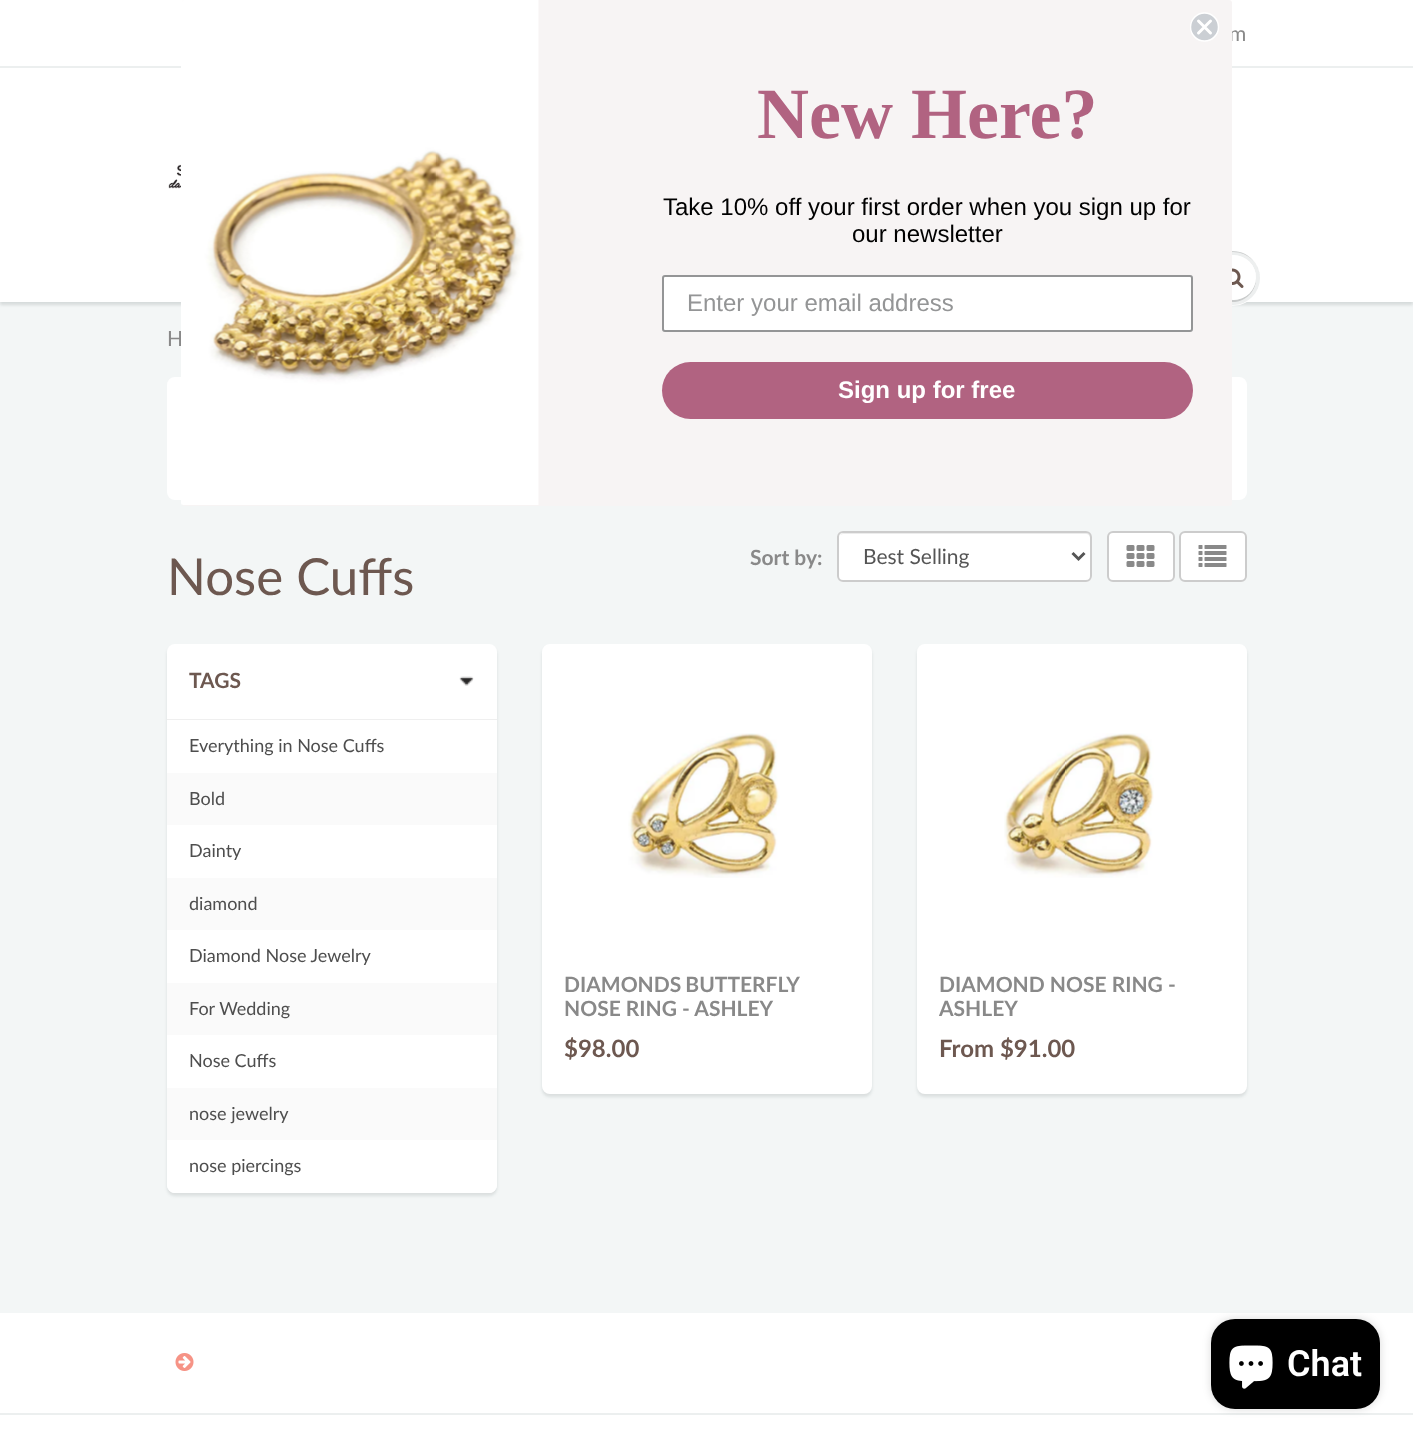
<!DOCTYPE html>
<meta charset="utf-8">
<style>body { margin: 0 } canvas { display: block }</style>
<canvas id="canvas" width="1413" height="1439"></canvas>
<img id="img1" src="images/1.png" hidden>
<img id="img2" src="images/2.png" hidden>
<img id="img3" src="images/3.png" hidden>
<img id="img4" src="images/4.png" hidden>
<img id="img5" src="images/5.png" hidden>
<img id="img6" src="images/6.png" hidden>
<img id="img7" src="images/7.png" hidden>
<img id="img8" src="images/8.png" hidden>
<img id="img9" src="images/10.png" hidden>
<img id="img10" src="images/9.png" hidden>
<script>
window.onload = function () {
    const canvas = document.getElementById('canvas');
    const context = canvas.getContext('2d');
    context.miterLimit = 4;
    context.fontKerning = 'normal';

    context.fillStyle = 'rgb(255, 255, 255)';
    context.fillRect(0, 0, 1413, 1439);
    context.fillStyle = 'rgb(243, 246, 246)';
    context.fillRect(0, 302, 1413, 1011);
    context.fillStyle = 'rgba(11, 25, 28, 0.12)';
    context.filter = 'blur(1.5px)';
    context.beginPath();
    context.rect(0, 69, 1413, 236);
    context.fill();
    context.filter = 'none';
    context.fillStyle = 'rgb(255, 255, 255)';
    context.fillRect(0, 68, 1413, 234);
    context.fillStyle = 'rgb(236, 239, 239)';
    context.fillRect(0, 66, 1413, 2);
    context.drawImage(document.getElementById('img1'), 168, 164, 13, 25);
    context.fillStyle = 'rgb(255, 255, 255)';
    context.beginPath();
    context.moveTo(1260, 278);
    context.bezierCurveTo(1259, 313, 1207, 313, 1206, 278);
    context.bezierCurveTo(1206, 284, 1207, 289, 1211, 294);
    context.bezierCurveTo(1226, 316, 1261, 305, 1260, 278);
    context.closePath();
    context.fill();
    context.fillStyle = 'rgb(237, 239, 239)';
    context.beginPath();
    context.arc(1233, 278, 27, 0, 2 * Math.PI);
    context.fill();
    context.fillStyle = 'rgb(201, 203, 203)';
    context.beginPath();
    context.moveTo(1233, 252);
    context.bezierCurveTo(1248, 252, 1260, 264, 1260, 278);
    context.bezierCurveTo(1260, 273, 1258, 267, 1255, 263);
    context.bezierCurveTo(1240, 241, 1206, 252, 1206, 278);
    context.bezierCurveTo(1206, 264, 1218, 252, 1233, 252);
    context.closePath();
    context.fill();
    context.beginPath();
    context.moveTo(1211, 284);
    context.bezierCurveTo(1212, 289, 1215, 294, 1219, 297);
    context.bezierCurveTo(1236, 311, 1261, 294, 1255, 273);
    context.bezierCurveTo(1261, 301, 1220, 311, 1211, 284);
    context.closePath();
    context.fill();
    context.fillStyle = 'rgb(255, 255, 255)';
    context.beginPath();
    context.arc(1233.5, 277.5, 22.5, 0, 2 * Math.PI);
    context.fill();
    context.beginPath();
    context.moveTo(1233, 256);
    context.bezierCurveTo(1250, 256, 1258, 271, 1255, 284);
    context.bezierCurveTo(1262, 261, 1232, 245, 1216, 263);
    context.bezierCurveTo(1220, 259, 1226, 256, 1233, 256);
    context.closePath();
    context.fill();
    context.drawImage(document.getElementById('img2'), 1232, 268, 12, 20);
    context.beginPath();
    context.roundRect(171, 381, 1072, 115, 4);
    context.strokeStyle = 'rgb(255, 255, 255)';
    context.lineWidth = 8;
    context.stroke();
    context.fillRect(175, 385, 1064, 107);
    context.fillStyle = 'rgba(11, 25, 28, 0.1)';
    context.filter = 'blur(1.5px)';
    context.beginPath();
    context.roundRect(167, 647, 330, 549, 8);
    context.fill();
    context.filter = 'none';
    context.fillStyle = 'rgb(255, 255, 255)';
    context.beginPath();
    context.roundRect(167, 644, 330, 549, 8);
    context.fill();
    context.fillStyle = 'rgb(239, 239, 239)';
    context.fillRect(167, 719, 330, 1);
    context.drawImage(document.getElementById('img3'), 459, 676, 15, 10);
    context.fillStyle = 'rgb(250, 250, 250)';
    context.fillRect(167, 773, 330, 52);
    context.fillRect(167, 878, 330, 52);
    context.fillRect(167, 983, 330, 52);
    context.fillRect(167, 1088, 330, 52);
    context.fillStyle = 'rgb(255, 255, 255)';
    context.beginPath();
    context.roundRect(167, 1140, 330, 53, [0, 0, 8, 8]);
    context.fill();
    context.beginPath();
    context.roundRect(837, 531, 255, 51, 6);
    context.fill();
    context.fillStyle = 'rgb(236, 236, 236)';
    context.beginPath();
    context.moveTo(843, 534);
    context.lineTo(1086, 534);
    context.bezierCurveTo(1088, 534, 1090, 536, 1090, 538);
    context.lineTo(1090, 579);
    context.bezierCurveTo(1091, 578, 1091, 577, 1091, 576);
    context.lineTo(1091, 538);
    context.bezierCurveTo(1091, 535, 1089, 533, 1086, 533);
    context.lineTo(844, 533);
    context.bezierCurveTo(842, 533, 841, 534, 840, 535);
    context.closePath();
    context.fill();
    context.beginPath();
    context.roundRect(838, 532, 253, 49, 5);
    context.strokeStyle = 'rgb(204, 204, 204)';
    context.lineWidth = 2;
    context.stroke();
    context.beginPath();
    context.moveTo(1072.5, 553);
    context.lineTo(1078.5, 559);
    context.lineTo(1084.5, 553);
    context.strokeStyle = 'rgb(85, 85, 85)';
    context.lineWidth = 3;
    context.stroke();
    context.fillStyle = 'rgb(255, 255, 255)';
    context.beginPath();
    context.roundRect(1108, 532, 66, 49, 5);
    context.fill();
    context.strokeStyle = 'rgb(204, 204, 204)';
    context.lineWidth = 2;
    context.stroke();
    context.drawImage(document.getElementById('img4'), 1126, 545, 29, 22);
    context.beginPath();
    context.roundRect(1180, 532, 66, 49, 5);
    context.fill();
    context.stroke();
    context.drawImage(document.getElementById('img5'), 1198, 545, 29, 22);
    context.fillStyle = 'rgba(11, 25, 28, 0.1)';
    context.filter = 'blur(1.5px)';
    context.beginPath();
    context.roundRect(542, 647, 330, 450, 8);
    context.fill();
    context.filter = 'none';
    context.fillStyle = 'rgb(255, 255, 255)';
    context.beginPath();
    context.roundRect(546, 648, 322, 442, 4);
    context.fill();
    context.strokeStyle = 'rgb(255, 255, 255)';
    context.lineWidth = 8;
    context.stroke();
    context.drawImage(document.getElementById('img6'), 628, 733, 152, 145);
    context.fillStyle = 'rgba(11, 25, 28, 0.1)';
    context.filter = 'blur(1.5px)';
    context.beginPath();
    context.roundRect(917, 647, 330, 450, 8);
    context.fill();
    context.filter = 'none';
    context.fillStyle = 'rgb(255, 255, 255)';
    context.beginPath();
    context.roundRect(921, 648, 322, 442, 4);
    context.fill();
    context.stroke();
    context.drawImage(document.getElementById('img7'), 1004, 733, 150, 145);
    context.drawImage(document.getElementById('img8'), 175, 1353, 19, 18);
    context.fillStyle = 'rgb(236, 239, 239)';
    context.fillRect(0, 1413, 1413, 2);
    context.fillStyle = 'rgba(0, 0, 0, 0.15)';
    context.filter = 'blur(4px)';
    context.beginPath();
    context.roundRect(1211, 1319, 169, 90, 24);
    context.fill();
    context.filter = 'none';
    context.fillStyle = 'rgb(0, 0, 0)';
    context.beginPath();
    context.roundRect(1211, 1319, 169, 90, 24);
    context.fill();
    context.drawImage(document.getElementById('img9'), 1229, 1345, 44, 44);
    context.font = '21px Lato';
    context.fillStyle = 'rgb(137, 137, 137)';
    context.fillText('m', 1229, 41);
    context.fillText('H', 167, 346);
    context.font = 'bold 21px Lato';
    context.fillStyle = 'rgb(109, 88, 80)';
    context.fillText('TAGS', 189, 688);
    context.font = '18px Lato';
    context.fillStyle = 'rgb(78, 78, 78)';
    context.fillText('Everything in Nose Cuffs', 189, 752);
    context.fillText('Bold', 189, 805);
    context.fillText('Dainty', 189, 857);
    context.fillText('diamond', 189, 910);
    context.fillText('Diamond Nose Jewelry', 189, 962);
    context.fillText('For Wedding', 189, 1015);
    context.fillText('Nose Cuffs', 189, 1067);
    context.fillText('nose jewelry', 189, 1120);
    context.fillText('nose piercings', 189, 1172);
    context.font = 'bold 21px Lato';
    context.fillStyle = 'rgb(137, 137, 137)';
    context.fillText('Sort by:', 750, 565);
    context.font = '21px Lato';
    context.fillStyle = 'rgb(85, 85, 85)';
    context.fillText('Best Selling', 863, 564);
    context.wordSpacing = '-1px';
    context.font = 'bold 21px Lato';
    context.fillStyle = 'rgb(137, 137, 137)';
    context.fillText('DIAMONDS BUTTERFLY', 564, 992);
    context.wordSpacing = '0px';
    context.fillText('NOSE RING - ASHLEY', 564, 1016);
    context.font = 'bold 24px Lato';
    context.fillStyle = 'rgb(109, 88, 80)';
    context.fillText('$98.00', 564, 1057);
    context.font = 'bold 21px Lato';
    context.fillStyle = 'rgb(137, 137, 137)';
    context.fillText('DIAMOND NOSE RING -', 939, 992);
    context.fillText('ASHLEY', 939, 1016);
    context.font = 'bold 24px Lato';
    context.fillStyle = 'rgb(109, 88, 80)';
    context.fillText('From $91.00', 939, 1057);
    context.font = '51px Lato';
    context.fillText('Nose Cuffs', 167, 595);
    context.fillStyle = 'rgb(247, 244, 244)';
    context.beginPath();
    context.roundRect(182, 0, 1050, 506, 3);
    context.fill();
    context.fillStyle = 'rgb(203, 207, 212)';
    context.beginPath();
    context.arc(1204.5, 27, 14, 0, 2 * Math.PI);
    context.fill();
    context.save();
    context.beginPath();
    context.rect(1190, 12, 30, 30);
    context.clip();
    context.beginPath();
    context.arc(1204.5, 27, 14, 0, 2 * Math.PI);
    context.lineWidth = 1.5;
    context.stroke();
    context.restore();
    context.beginPath();
    context.moveTo(1198.5, 21);
    context.lineTo(1210.5, 33);
    context.moveTo(1198.5, 33);
    context.lineTo(1210.5, 21);
    context.closePath();
    context.lineWidth = 3;
    context.lineCap = 'round';
    context.lineJoin = 'round';
    context.stroke();
    context.drawImage(document.getElementById('img10'), 181, 0, 358, 505);
    context.font = 'bold 72px Liberation Serif';
    context.fillStyle = 'rgb(177, 99, 129)';
    context.fillText('New Here?', 757, 138);
    context.font = '24px Liberation Sans';
    context.fillStyle = 'rgb(0, 0, 0)';
    context.fillText('Take 10% off your first order when you sign up for', 663, 215);
    context.fillText('our newsletter', 852, 242);
    context.fillStyle = 'rgb(255, 255, 255)';
    context.beginPath();
    context.roundRect(663, 276, 529, 55, 2);
    context.fill();
    context.strokeStyle = 'rgb(148, 149, 150)';
    context.lineWidth = 2;
    context.lineJoin = 'miter';
    context.stroke();
    context.fillStyle = 'rgb(148, 149, 150)';
    context.fillText('Enter your email address', 687, 311);
    context.fillStyle = 'rgb(177, 99, 129)';
    context.beginPath();
    context.roundRect(662, 362, 531, 57, 28.5);
    context.fill();
    context.font = 'bold 24px Liberation Sans';
    context.fillStyle = 'rgb(255, 255, 255)';
    context.fillText('Sign up for free', 838, 398);
    context.font = '600 36px Roboto';
    context.fillText('Chat', 1287, 1376);
};
</script>
